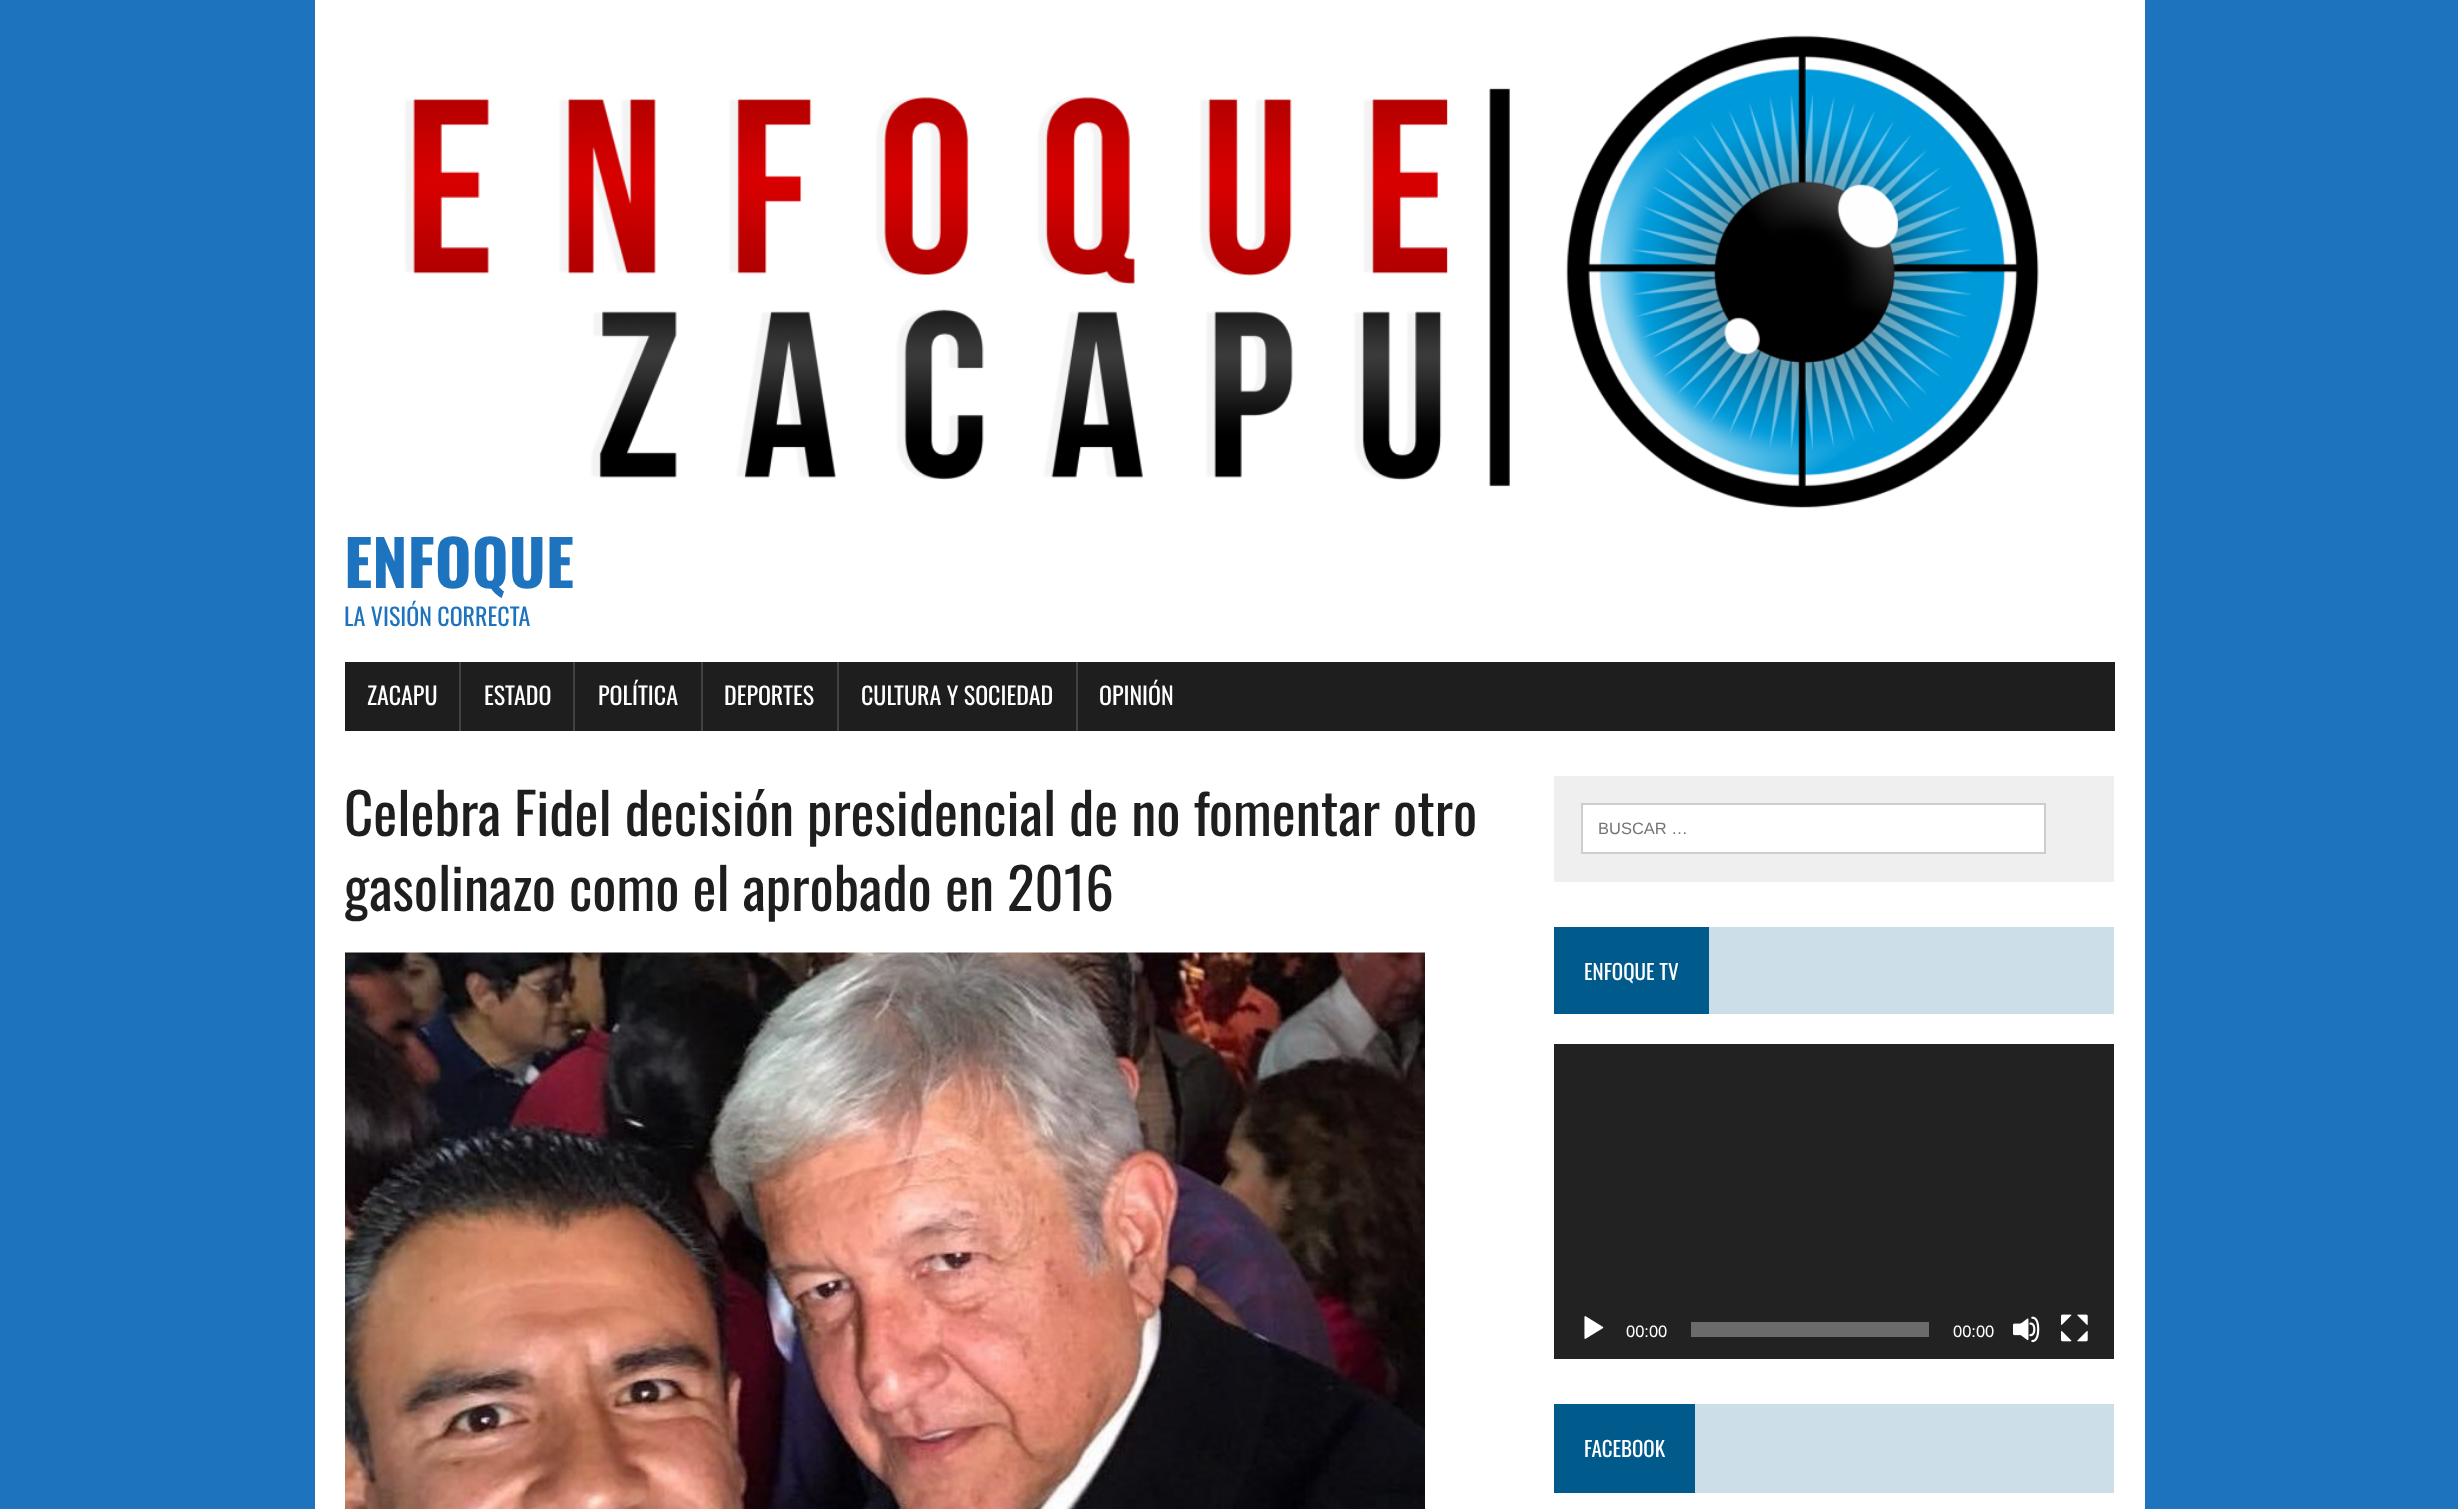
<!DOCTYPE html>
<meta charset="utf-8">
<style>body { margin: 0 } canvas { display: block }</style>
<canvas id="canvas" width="2458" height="1509"></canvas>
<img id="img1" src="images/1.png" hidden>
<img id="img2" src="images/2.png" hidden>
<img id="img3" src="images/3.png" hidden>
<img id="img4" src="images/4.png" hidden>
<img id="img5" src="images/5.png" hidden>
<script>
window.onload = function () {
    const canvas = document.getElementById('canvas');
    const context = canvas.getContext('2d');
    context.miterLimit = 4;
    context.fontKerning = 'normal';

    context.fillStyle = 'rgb(30, 115, 190)';
    context.fillRect(0, 0, 2458, 1509);
    context.fillStyle = 'rgb(255, 255, 255)';
    context.fillRect(315, 0, 1830, 1509);
    context.drawImage(document.getElementById('img1'), 405, 35, 1634, 473);
    context.fillStyle = 'rgb(31, 30, 30)';
    context.fillRect(345, 662, 1770, 69);
    context.fillStyle = 'rgb(66, 66, 66)';
    context.fillRect(459, 662, 2, 69);
    context.fillRect(573, 662, 2, 69);
    context.fillRect(701, 662, 2, 69);
    context.fillRect(837, 662, 2, 69);
    context.fillRect(1076, 662, 2, 69);
    context.drawImage(document.getElementById('img2'), 345, 952, 1080, 557);
    context.fillStyle = 'rgb(239, 239, 239)';
    context.fillRect(1554, 776, 560, 106);
    context.fillStyle = 'rgb(255, 255, 255)';
    context.beginPath();
    context.rect(1582, 804, 463, 49);
    context.fill();
    context.strokeStyle = 'rgb(205, 205, 205)';
    context.lineWidth = 2;
    context.stroke();
    context.fillStyle = 'rgb(204, 222, 232)';
    context.fillRect(1709, 927, 405, 87);
    context.fillStyle = 'rgb(0, 90, 140)';
    context.fillRect(1554, 927, 155, 87);
    context.fillStyle = 'rgb(34, 34, 34)';
    context.fillRect(1554, 1044, 560, 315);
    context.drawImage(document.getElementById('img3'), 1584, 1316, 20, 23);
    context.fillStyle = 'rgb(107, 107, 107)';
    context.fillRect(1691, 1322, 238, 15);
    context.drawImage(document.getElementById('img4'), 2013, 1316, 27, 27);
    context.drawImage(document.getElementById('img5'), 2061, 1314, 27, 28);
    context.fillStyle = 'rgb(204, 222, 232)';
    context.fillRect(1695, 1404, 419, 89);
    context.fillStyle = 'rgb(0, 90, 140)';
    context.fillRect(1554, 1404, 141, 89);
    context.font = 'bold 63px Oswald';
    context.fillStyle = 'rgb(30, 115, 190)';
    context.fillText('ENFOQUE', 344, 588);
    context.font = '24px Oswald';
    context.fillText('LA VISIÓN CORRECTA', 344, 626);
    context.fillStyle = 'rgb(255, 255, 255)';
    context.fillText('ZACAPU', 367, 705);
    context.fillText('ESTADO', 484, 705);
    context.fillText('POLÍTICA', 598, 705);
    context.fillText('DEPORTES', 724, 705);
    context.fillText('CULTURA Y SOCIEDAD', 861, 705);
    context.fillText('OPINIÓN', 1099, 705);
    context.font = '57px Oswald';
    context.fillStyle = 'rgb(31, 30, 30)';
    context.fillText('Celebra Fidel decisión presidencial de no fomentar otro', 344, 836);
    context.fillText('gasolinazo como el aprobado en 2016', 344, 911);
    context.font = '16.5px Liberation Sans';
    context.fillStyle = 'rgb(117, 117, 117)';
    context.fillText('BUSCAR …', 1598, 834);
    context.font = '21px Oswald';
    context.fillStyle = 'rgb(255, 255, 255)';
    context.fillText('ENFOQUE TV', 1584, 980);
    context.font = '16.5px Liberation Sans';
    context.fillText('00:00', 1626, 1337);
    context.fillText('00:00', 1953, 1337);
    context.font = '21px Oswald';
    context.fillText('FACEBOOK', 1584, 1457);
};
</script>
